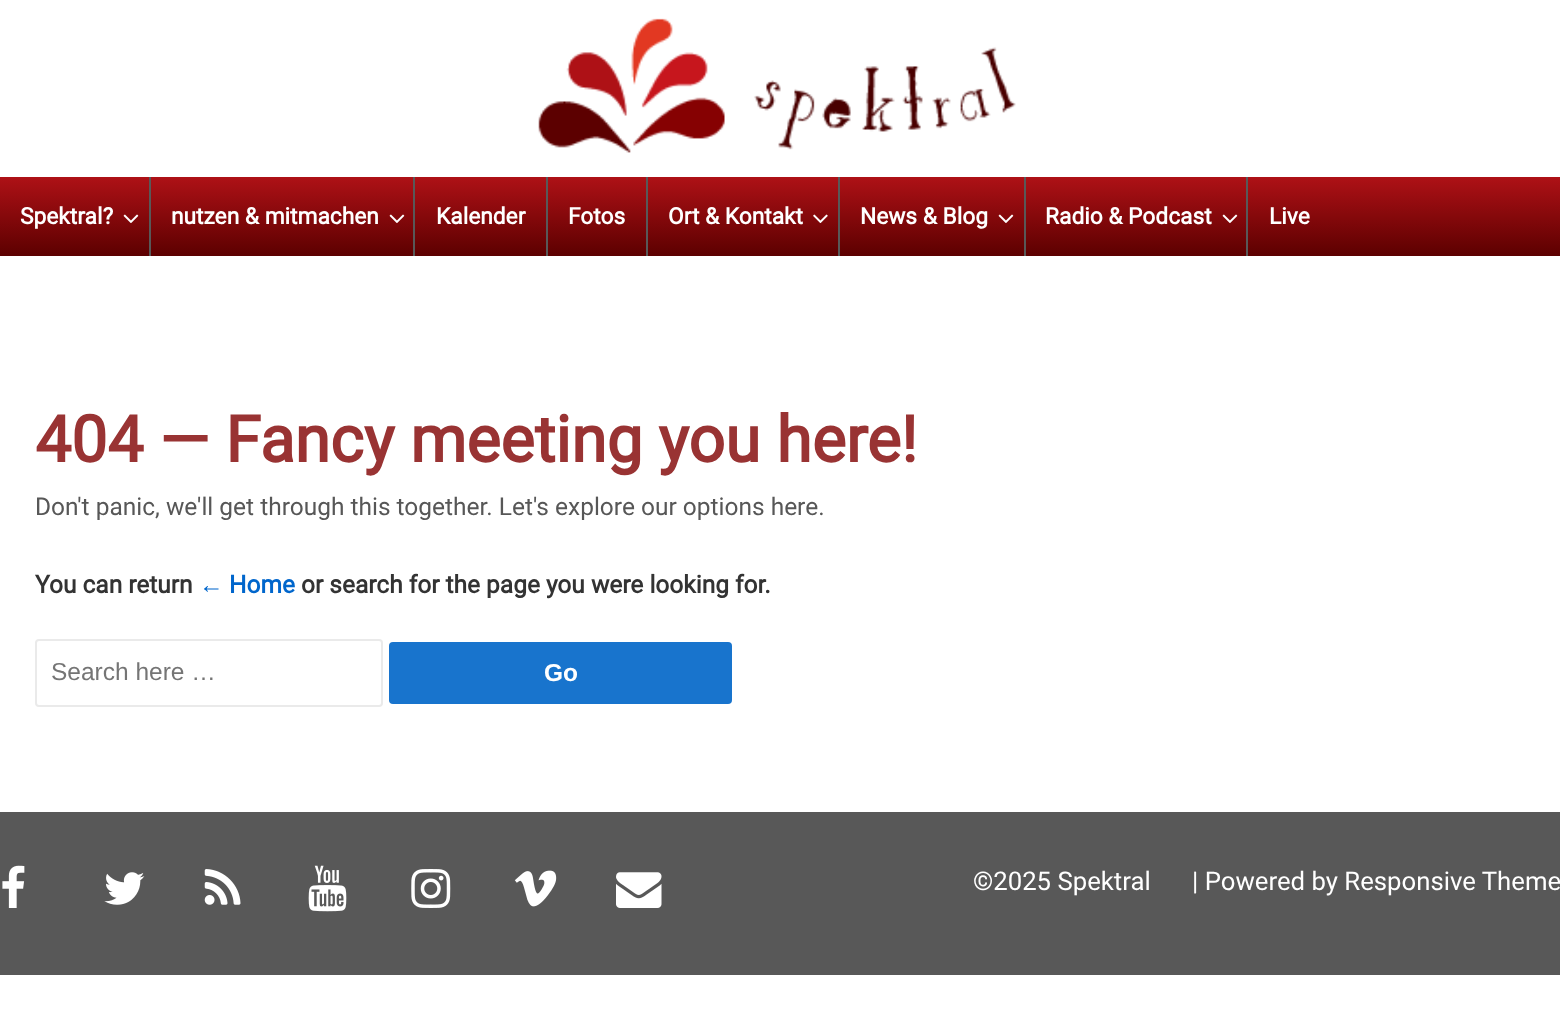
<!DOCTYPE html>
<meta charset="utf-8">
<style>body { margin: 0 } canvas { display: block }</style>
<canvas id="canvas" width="1560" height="1018"></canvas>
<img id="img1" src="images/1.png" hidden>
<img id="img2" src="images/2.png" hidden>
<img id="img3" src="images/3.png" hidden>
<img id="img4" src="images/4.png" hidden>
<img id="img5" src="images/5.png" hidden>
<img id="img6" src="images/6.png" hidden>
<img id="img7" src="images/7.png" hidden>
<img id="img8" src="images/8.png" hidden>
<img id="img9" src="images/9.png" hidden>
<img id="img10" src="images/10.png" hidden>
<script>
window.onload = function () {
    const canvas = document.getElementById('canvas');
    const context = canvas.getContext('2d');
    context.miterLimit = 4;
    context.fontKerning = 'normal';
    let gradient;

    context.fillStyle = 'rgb(255, 255, 255)';
    context.fillRect(0, 0, 1560, 1018);
    context.drawImage(document.getElementById('img1'), 538, 18, 478, 135);
    gradient = context.createLinearGradient(781, 177, 781, 256);
    gradient.addColorStop(0, 'rgb(174, 17, 22)');
    gradient.addColorStop(1, 'rgb(92, 0, 0)');
    context.fillStyle = gradient;
    context.fillRect(0, 177, 1560, 79);
    context.drawImage(document.getElementById('img2'), 123, 214, 16, 9);
    context.fillStyle = 'rgb(88, 88, 88)';
    context.fillRect(149, 177, 2, 79);
    context.drawImage(document.getElementById('img2'), 389, 214, 16, 9);
    context.fillRect(413, 177, 2, 79);
    context.fillRect(546, 177, 2, 79);
    context.fillRect(646, 177, 2, 79);
    context.drawImage(document.getElementById('img3'), 813, 214, 15, 9);
    context.fillRect(838, 177, 2, 79);
    context.drawImage(document.getElementById('img2'), 998, 214, 16, 9);
    context.fillRect(1024, 177, 2, 79);
    context.drawImage(document.getElementById('img2'), 1222, 214, 16, 9);
    context.fillRect(1246, 177, 2, 79);
    context.beginPath();
    context.roundRect(36, 640, 346, 66, 3);
    context.strokeStyle = 'rgb(234, 234, 234)';
    context.lineWidth = 2;
    context.stroke();
    context.fillStyle = 'rgb(24, 116, 205)';
    context.beginPath();
    context.roundRect(389, 642, 343, 62, 4);
    context.fill();
    context.fillStyle = 'rgb(88, 88, 88)';
    context.fillRect(0, 812, 1560, 163);
    context.drawImage(document.getElementById('img4'), 2, 865, 23, 43);
    context.drawImage(document.getElementById('img5'), 104, 872, 41, 33);
    context.drawImage(document.getElementById('img6'), 204, 869, 37, 36);
    context.drawImage(document.getElementById('img7'), 308, 865, 39, 47);
    context.drawImage(document.getElementById('img8'), 411, 869, 40, 39);
    context.drawImage(document.getElementById('img9'), 514, 870, 43, 37);
    context.drawImage(document.getElementById('img10'), 616, 872, 46, 36);
    context.font = 'bold 22.75px Roboto';
    context.fillStyle = 'rgb(255, 255, 255)';
    context.fillText('Spektral?', 20, 224);
    context.fillText('nutzen & mitmachen', 171, 224);
    context.fillText('Kalender', 436, 224);
    context.fillText('Fotos', 568, 224);
    context.fillText('Ort & Kontakt', 668, 224);
    context.fillText('News & Blog', 860, 224);
    context.fillText('Radio & Podcast', 1045, 224);
    context.fillText('Live', 1269, 224);
    context.font = 'bold 64.25px Roboto';
    context.fillStyle = 'rgb(153, 51, 51)';
    context.fillText('404 — Fancy meeting you here!', 35, 462);
    context.font = '24.5px Roboto';
    context.fillStyle = 'rgb(87, 87, 87)';
    context.fillText('Don\'t panic, we\'ll get through this together. Let\'s explore our options here.', 35, 515);
    context.font = 'bold 24.5px Roboto';
    context.fillStyle = 'rgb(51, 51, 51)';
    context.fillText('You can return', 35, 593);
    context.font = 'bold 24.5px Liberation Serif';
    context.fillStyle = 'rgb(0, 102, 204)';
    context.fillText('←', 199, 593);
    context.font = 'bold 24.5px Roboto';
    context.fillText('Home', 229, 593);
    context.fillStyle = 'rgb(51, 51, 51)';
    context.fillText('or search for the page you were looking for.', 301, 593);
    context.font = '24.5px Liberation Sans';
    context.fillStyle = 'rgb(117, 117, 117)';
    context.fillText('Search here …', 51, 680);
    context.font = 'bold 24.5px Liberation Sans';
    context.fillStyle = 'rgb(255, 255, 255)';
    context.fillText('Go', 544, 681);
    context.font = '25.75px Roboto';
    context.fillText('©2025 Spektral', 973, 890);
    context.fillText('| Powered by Responsive Theme', 1192, 890);
};
</script>
